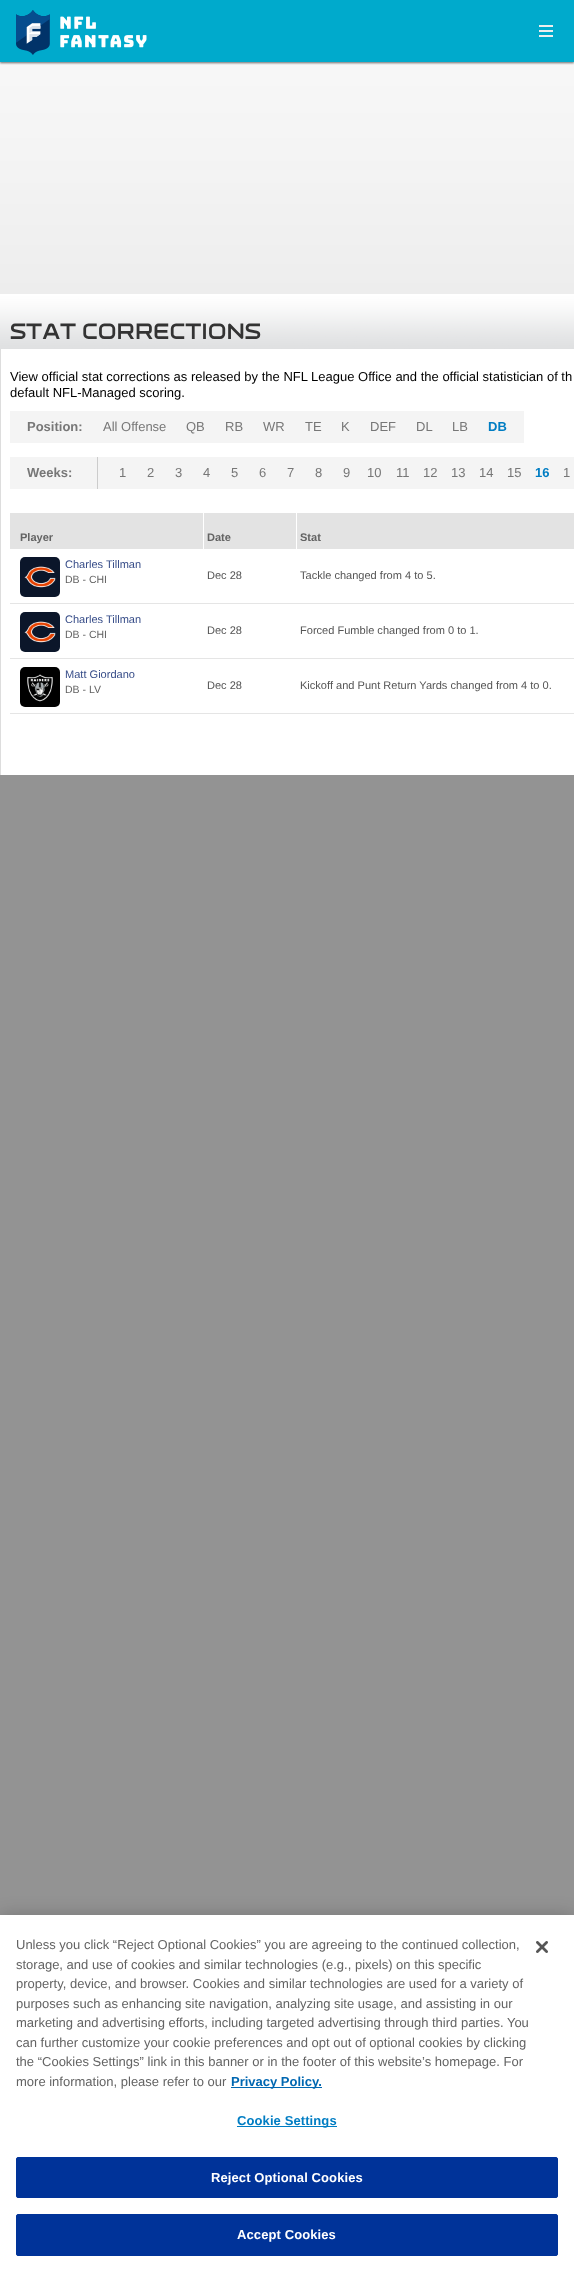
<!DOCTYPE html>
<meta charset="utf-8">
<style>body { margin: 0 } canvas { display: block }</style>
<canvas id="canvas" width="574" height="2272"></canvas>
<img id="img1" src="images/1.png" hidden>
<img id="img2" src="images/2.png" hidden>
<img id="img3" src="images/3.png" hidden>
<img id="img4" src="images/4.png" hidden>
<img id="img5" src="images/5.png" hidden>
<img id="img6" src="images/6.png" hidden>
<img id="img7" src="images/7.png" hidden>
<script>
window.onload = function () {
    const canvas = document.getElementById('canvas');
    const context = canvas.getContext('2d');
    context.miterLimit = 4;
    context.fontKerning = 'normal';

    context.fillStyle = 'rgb(147, 147, 147)';
    context.fillRect(0, 0, 574, 2272);
    context.drawImage(document.getElementById('img1'), 0, 62, 574, 232);
    context.fillStyle = 'rgb(153, 153, 153)';
    context.filter = 'blur(1px)';
    context.beginPath();
    context.rect(0, 1, 574, 62);
    context.fill();
    context.filter = 'none';
    context.fillStyle = 'rgba(0, 0, 0, 0.24)';
    context.filter = 'blur(1px)';
    context.beginPath();
    context.rect(0, 1, 574, 62);
    context.fill();
    context.filter = 'none';
    context.fillStyle = 'rgb(0, 170, 204)';
    context.fillRect(0, 0, 574, 62);
    context.drawImage(document.getElementById('img2'), 16, 10, 131, 45);
    context.drawImage(document.getElementById('img3'), 539, 25, 14, 12);
    context.drawImage(document.getElementById('img4'), 0, 294, 574, 55);
    context.fillStyle = 'rgb(255, 255, 255)';
    context.fillRect(1, 349, 573, 426);
    context.fillStyle = 'rgb(221, 221, 221)';
    context.fillRect(0, 349, 1, 426);
    context.fillStyle = 'rgb(244, 244, 244)';
    context.fillRect(10, 411, 514, 32);
    context.fillRect(10, 457, 564, 32);
    context.fillStyle = 'rgb(204, 204, 204)';
    context.fillRect(97, 457, 1, 32);
    context.fillStyle = 'rgb(227, 227, 227)';
    context.fillRect(10, 513, 193, 36);
    context.fillRect(204, 513, 92, 36);
    context.fillRect(297, 513, 277, 36);
    context.drawImage(document.getElementById('img5'), 20, 557, 40, 40);
    context.fillStyle = 'rgb(229, 229, 229)';
    context.fillRect(10, 603, 564, 1);
    context.drawImage(document.getElementById('img5'), 20, 612, 40, 40);
    context.fillRect(10, 658, 564, 1);
    context.drawImage(document.getElementById('img6'), 20, 667, 40, 40);
    context.fillRect(10, 713, 564, 1);
    context.fillStyle = 'rgba(0, 0, 0, 0.2)';
    context.filter = 'blur(9px)';
    context.beginPath();
    context.rect(0, 1915, 574, 357);
    context.fill();
    context.filter = 'none';
    context.fillStyle = 'rgb(255, 255, 255)';
    context.fillRect(0, 1915, 574, 357);
    context.fillStyle = 'rgb(0, 103, 177)';
    context.fillRect(231, 2087, 91, 1);
    context.fillStyle = 'rgb(0, 125, 195)';
    context.fillRect(237, 2126, 100, 1);
    context.fillStyle = 'rgb(0, 51, 153)';
    context.beginPath();
    context.roundRect(16.5, 2157.5, 541, 40, 1.5);
    context.fill();
    context.strokeStyle = 'rgb(0, 51, 153)';
    context.stroke();
    context.beginPath();
    context.roundRect(16.5, 2214.5, 541, 41, 1.5);
    context.fill();
    context.stroke();
    context.drawImage(document.getElementById('img7'), 536, 1941, 12, 12);
    context.font = 'bold 22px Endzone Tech';
    context.fillStyle = 'rgb(51, 51, 51)';
    context.fillText('STAT CORRECTIONS', 10, 339);
    context.font = '13px Liberation Sans';
    context.fillStyle = 'rgb(0, 0, 0)';
    context.fillText('View official stat corrections as released by the NFL League Office and the official statistician of th', 10, 381);
    context.fillText('default NFL-Managed scoring.', 10, 397);
    context.font = 'bold 13px Liberation Sans';
    context.fillStyle = 'rgb(119, 119, 119)';
    context.fillText('Position:', 27, 431);
    context.font = '13px Liberation Sans';
    context.fillText('All Offense', 103, 431);
    context.fillText('QB', 186, 431);
    context.fillText('RB', 225, 431);
    context.fillText('WR', 263, 431);
    context.fillText('TE', 305, 431);
    context.fillText('K', 341, 431);
    context.fillText('DEF', 370, 431);
    context.fillText('DL', 416, 431);
    context.fillText('LB', 452, 431);
    context.font = 'bold 13px Liberation Sans';
    context.fillStyle = 'rgb(0, 125, 195)';
    context.fillText('DB', 488, 431);
    context.fillStyle = 'rgb(119, 119, 119)';
    context.fillText('Weeks:', 27, 477);
    context.font = '13px Liberation Sans';
    context.fillText('1', 119, 477);
    context.fillText('2', 147, 477);
    context.fillText('3', 175, 477);
    context.fillText('4', 203, 477);
    context.fillText('5', 231, 477);
    context.fillText('6', 259, 477);
    context.fillText('7', 287, 477);
    context.fillText('8', 315, 477);
    context.fillText('9', 343, 477);
    context.fillText('10', 367, 477);
    context.fillText('11', 396, 477);
    context.fillText('12', 423, 477);
    context.fillText('13', 451, 477);
    context.fillText('14', 479, 477);
    context.fillText('15', 507, 477);
    context.font = 'bold 13px Liberation Sans';
    context.fillStyle = 'rgb(0, 125, 195)';
    context.fillText('16', 535, 477);
    context.font = '13px Liberation Sans';
    context.fillStyle = 'rgb(119, 119, 119)';
    context.fillText('1', 563, 477);
    context.font = 'bold 11.05px Liberation Sans';
    context.fillStyle = 'rgb(99, 99, 99)';
    context.fillText('Player', 20, 541);
    context.fillText('Date', 207, 541);
    context.fillText('Stat', 300, 541);
    context.font = '11.05px Liberation Sans';
    context.fillStyle = 'rgb(54, 76, 136)';
    context.fillText('Charles Tillman', 65, 568);
    context.font = '10.5px Liberation Sans';
    context.fillStyle = 'rgb(99, 99, 99)';
    context.fillText('DB - CHI', 65, 583);
    context.font = '11.05px Liberation Sans';
    context.fillStyle = 'rgb(85, 85, 85)';
    context.fillText('Dec 28', 207, 579);
    context.fillText('Tackle changed from 4 to 5.', 300, 579);
    context.fillStyle = 'rgb(54, 76, 136)';
    context.fillText('Charles Tillman', 65, 623);
    context.font = '10.5px Liberation Sans';
    context.fillStyle = 'rgb(99, 99, 99)';
    context.fillText('DB - CHI', 65, 638);
    context.font = '11.05px Liberation Sans';
    context.fillStyle = 'rgb(85, 85, 85)';
    context.fillText('Dec 28', 207, 634);
    context.fillText('Forced Fumble changed from 0 to 1.', 300, 634);
    context.fillStyle = 'rgb(54, 76, 136)';
    context.fillText('Matt Giordano', 65, 678);
    context.font = '10.5px Liberation Sans';
    context.fillStyle = 'rgb(99, 99, 99)';
    context.fillText('DB - LV', 65, 693);
    context.font = '11.05px Liberation Sans';
    context.fillStyle = 'rgb(85, 85, 85)';
    context.fillText('Dec 28', 207, 689);
    context.fillText('Kickoff and Punt Return Yards changed from 4 to 0.', 300, 689);
    context.font = '13px Liberation Sans';
    context.fillStyle = 'rgb(99, 99, 99)';
    context.fillText('Unless you click “Reject Optional Cookies” you are agreeing to the continued collection,', 16, 1949);
    context.fillText('storage, and use of cookies and similar technologies (e.g., pixels) on this specific', 16, 1969);
    context.fillText('property, device, and browser. Cookies and similar technologies are used for a variety of', 16, 1988);
    context.fillText('purposes such as enhancing site navigation, analyzing site usage, and assisting in our', 16, 2008);
    context.fillText('marketing and advertising efforts, including targeted advertising through third parties. You', 16, 2027);
    context.fillText('can further customize your cookie preferences and opt out of optional cookies by clicking', 16, 2047);
    context.fillText('the “Cookies Settings” link in this banner or in the footer of this website’s homepage. For', 16, 2066);
    context.fillText('more information, please refer to our', 16, 2086);
    context.font = 'bold 13px Liberation Sans';
    context.fillStyle = 'rgb(0, 103, 177)';
    context.fillText('Privacy Policy.', 231, 2086);
    context.letterSpacing = '0.1px';
    context.fillStyle = 'rgb(0, 125, 195)';
    context.fillText('Cookie Settings', 237, 2125);
    context.fillStyle = 'rgb(255, 255, 255)';
    context.fillText('Reject Optional Cookies', 211, 2182);
    context.fillText('Accept Cookies', 237, 2239);
};
</script>
